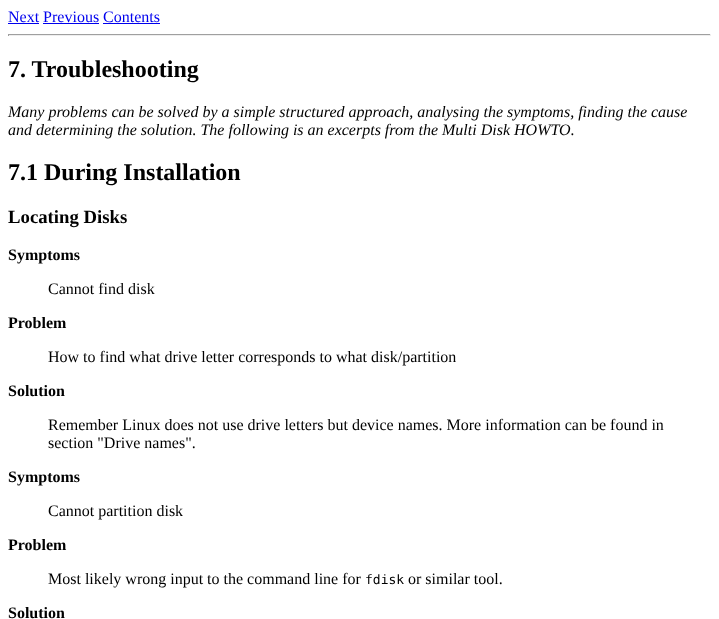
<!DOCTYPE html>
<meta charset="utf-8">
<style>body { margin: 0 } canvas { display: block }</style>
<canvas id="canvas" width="719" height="619"></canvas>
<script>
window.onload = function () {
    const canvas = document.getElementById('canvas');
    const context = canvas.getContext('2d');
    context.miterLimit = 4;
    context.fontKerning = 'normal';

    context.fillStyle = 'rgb(255, 255, 255)';
    context.fillRect(0, 0, 719, 619);
    context.fillStyle = 'rgb(0, 0, 238)';
    context.fillRect(8, 23, 31, 1);
    context.fillRect(43, 23, 56, 1);
    context.fillRect(103, 23, 57, 1);
    context.fillStyle = 'rgb(159, 159, 159)';
    context.fillRect(8, 34, 703, 1);
    context.fillStyle = 'rgb(238, 238, 238)';
    context.fillRect(710, 34, 1, 2);
    context.fillRect(8, 35, 703, 1);
    context.fillStyle = 'rgb(159, 159, 159)';
    context.fillRect(8, 34, 1, 2);
    context.font = '16px Liberation Serif';
    context.fillStyle = 'rgb(0, 0, 238)';
    context.fillText('Next Previous Contents', 8, 22);
    context.font = 'bold 24px Liberation Serif';
    context.fillStyle = 'rgb(0, 0, 0)';
    context.fillText('7. Troubleshooting', 8, 77);
    context.font = 'italic 16px Liberation Serif';
    context.fillText('Many problems can be solved by a simple structured approach, analysing the symptoms, finding the cause', 8, 117);
    context.fillText('and determining the solution. The following is an excerpts from the Multi Disk HOWTO.', 8, 135);
    context.font = 'bold 24px Liberation Serif';
    context.fillText('7.1 During Installation', 8, 180);
    context.font = 'bold 18.75px Liberation Serif';
    context.fillText('Locating Disks', 8, 223);
    context.font = 'bold 16px Liberation Serif';
    context.fillText('Symptoms', 8, 260);
    context.font = '16px Liberation Serif';
    context.fillText('Cannot find disk', 48, 294);
    context.font = 'bold 16px Liberation Serif';
    context.fillText('Problem', 8, 328);
    context.font = '16px Liberation Serif';
    context.fillText('How to find what drive letter corresponds to what disk/partition', 48, 362);
    context.font = 'bold 16px Liberation Serif';
    context.fillText('Solution', 8, 396);
    context.font = '16px Liberation Serif';
    context.fillText('Remember Linux does not use drive letters but device names. More information can be found in', 48, 430);
    context.fillText('section "Drive names".', 48, 448);
    context.font = 'bold 16px Liberation Serif';
    context.fillText('Symptoms', 8, 482);
    context.font = '16px Liberation Serif';
    context.fillText('Cannot partition disk', 48, 516);
    context.font = 'bold 16px Liberation Serif';
    context.fillText('Problem', 8, 550);
    context.font = '16px Liberation Serif';
    context.fillText('Most likely wrong input to the command line for', 48, 584);
    context.font = '13px DejaVu Sans Mono';
    context.fillText('fdisk', 365, 584);
    context.font = '16px Liberation Serif';
    context.fillText('or similar tool.', 408, 584);
    context.font = 'bold 16px Liberation Serif';
    context.fillText('Solution', 8, 618);
};
</script>
